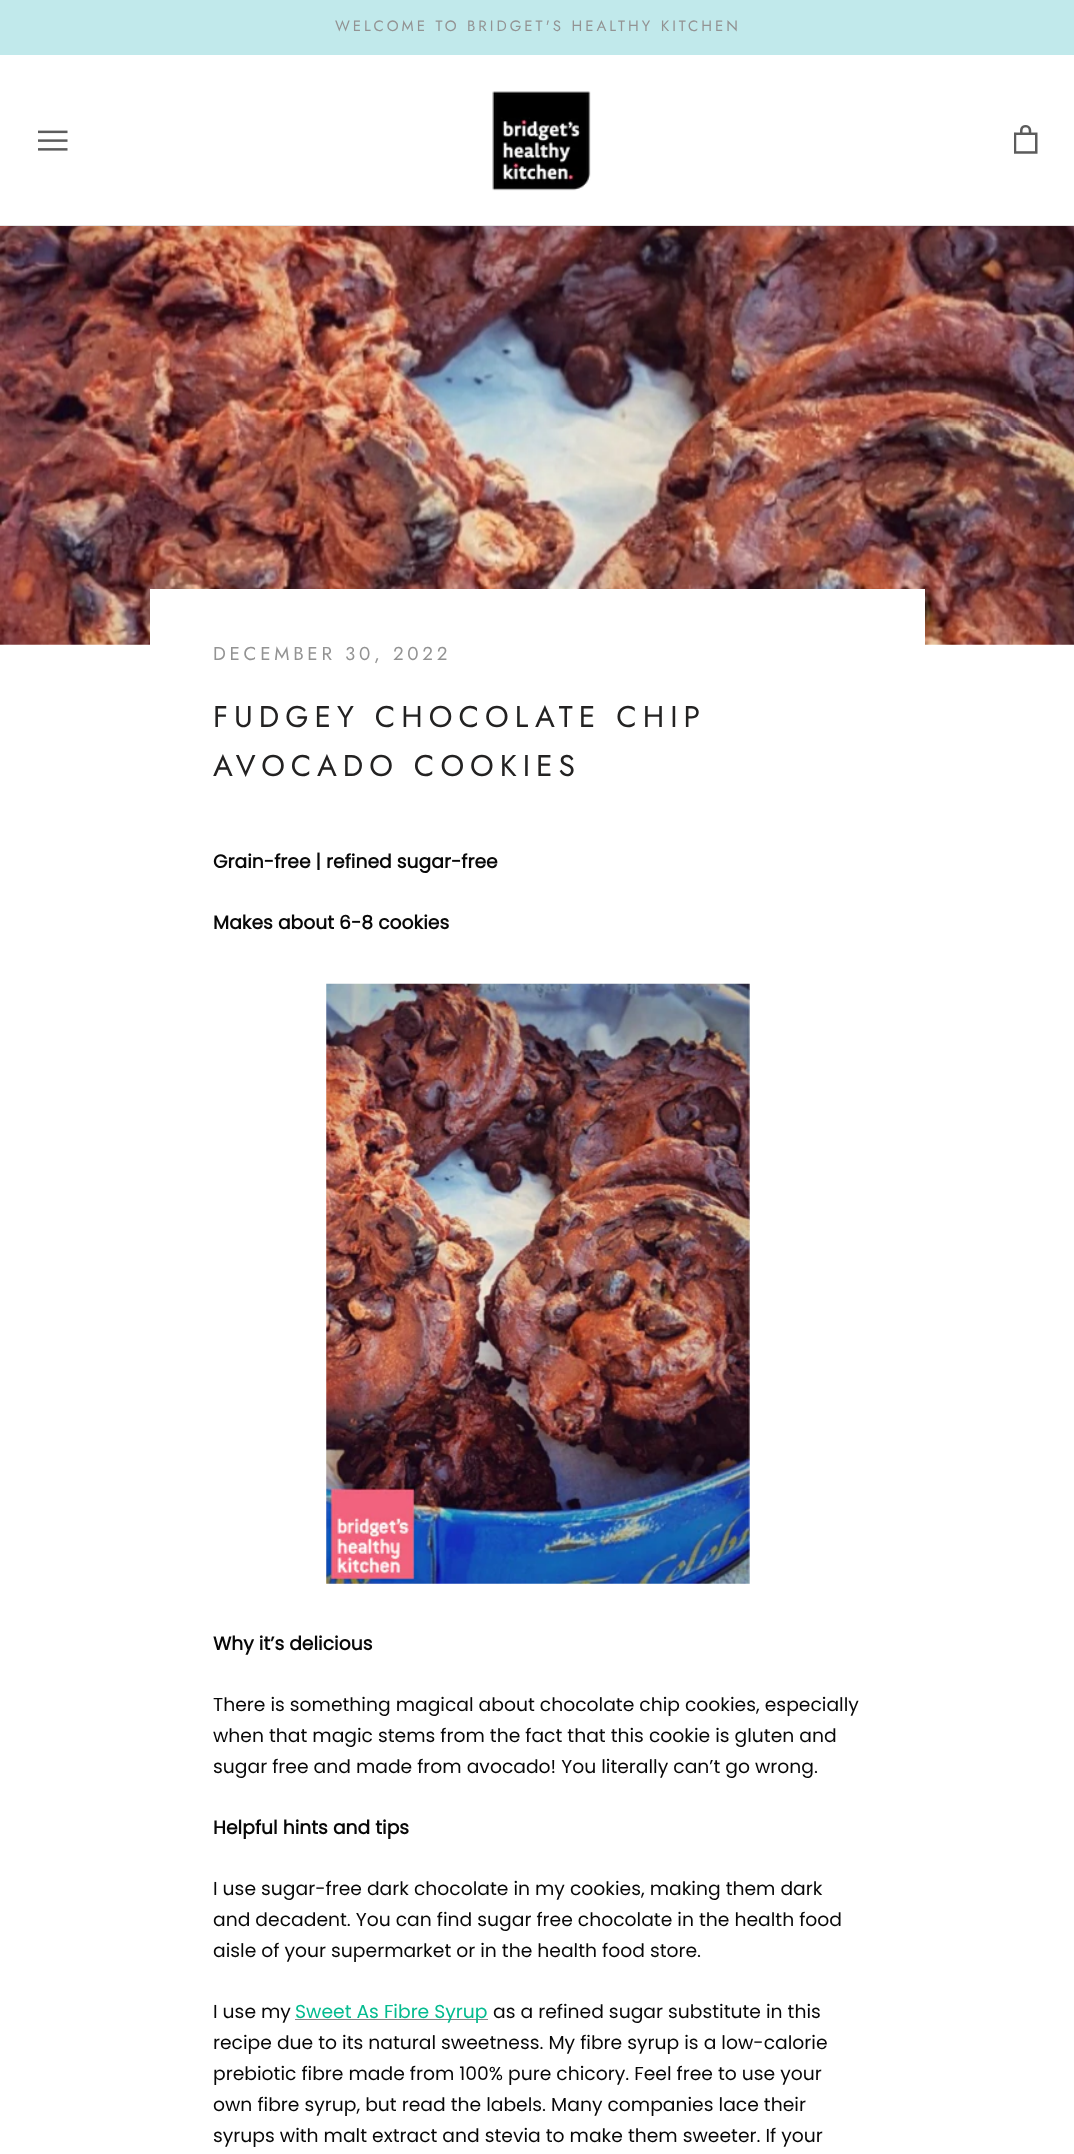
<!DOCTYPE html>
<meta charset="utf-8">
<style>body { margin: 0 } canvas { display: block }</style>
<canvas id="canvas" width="1074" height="2154"></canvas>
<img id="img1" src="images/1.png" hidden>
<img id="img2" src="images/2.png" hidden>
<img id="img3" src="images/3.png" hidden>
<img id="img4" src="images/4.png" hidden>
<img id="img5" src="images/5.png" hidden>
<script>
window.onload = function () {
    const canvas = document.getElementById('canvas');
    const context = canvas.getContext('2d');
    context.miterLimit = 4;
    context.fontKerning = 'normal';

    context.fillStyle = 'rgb(255, 255, 255)';
    context.fillRect(0, 0, 1074, 2154);
    context.fillStyle = 'rgb(193, 233, 235)';
    context.fillRect(0, 0, 1074, 55);
    context.fillStyle = 'rgb(231, 231, 231)';
    context.fillRect(0, 225, 1074, 1);
    context.drawImage(document.getElementById('img1'), 38, 130, 30, 21);
    context.drawImage(document.getElementById('img2'), 492, 91, 99, 100);
    context.drawImage(document.getElementById('img3'), 1014, 125, 24, 29);
    context.drawImage(document.getElementById('img4'), 0, 226, 1074, 419);
    context.fillStyle = 'rgb(255, 255, 255)';
    context.fillRect(150, 589, 775, 56);
    context.drawImage(document.getElementById('img5'), 326, 983, 424, 601);
    context.fillStyle = 'rgb(132, 132, 132)';
    context.fillRect(295, 2019, 193, 1);
    context.letterSpacing = '3px';
    context.font = '15px Jost';
    context.fillStyle = 'rgb(147, 147, 147)';
    context.fillText('WELCOME TO BRIDGET\'S HEALTHY KITCHEN', 335, 31);
    context.letterSpacing = '3.75px';
    context.font = '18.75px Jost';
    context.fillText('DECEMBER 30, 2022', 213, 660);
    context.letterSpacing = '6px';
    context.font = '30px Jost';
    context.fillStyle = 'rgb(35, 34, 34)';
    context.fillText('FUDGEY CHOCOLATE CHIP', 213, 727);
    context.fillText('AVOCADO COOKIES', 213, 776);
    context.letterSpacing = '0px';
    context.font = 'bold 18.75px Poppins';
    context.fillStyle = 'rgb(8, 8, 8)';
    context.fillText('Grain-free | refined sugar-free', 213, 868);
    context.fillText('Makes about 6-8 cookies', 213, 929);
    context.fillText('Why it’s delicious', 213, 1650);
    context.font = '18.75px Poppins';
    context.fillText('There is something magical about chocolate chip cookies, especially', 213, 1711);
    context.fillText('when that magic stems from the fact that this cookie is gluten and', 213, 1742);
    context.fillText('sugar free and made from avocado! You literally can’t go wrong.', 213, 1773);
    context.font = 'bold 18.75px Poppins';
    context.fillText('Helpful hints and tips', 213, 1834);
    context.font = '18.75px Poppins';
    context.fillText('I use sugar-free dark chocolate in my cookies, making them dark', 213, 1895);
    context.fillText('and decadent. You can find sugar free chocolate in the health food', 213, 1926);
    context.fillText('aisle of your supermarket or in the health food store.', 213, 1957);
    context.fillText('I use my', 213, 2018);
    context.fillStyle = 'rgb(3, 187, 143)';
    context.fillText('Sweet As Fibre Syrup', 295, 2018);
    context.fillStyle = 'rgb(8, 8, 8)';
    context.fillText('as a refined sugar substitute in this', 493, 2018);
    context.fillText('recipe due to its natural sweetness. My fibre syrup is a low-calorie', 213, 2049);
    context.fillText('prebiotic fibre made from 100% pure chicory. Feel free to use your', 213, 2080);
    context.fillText('own fibre syrup, but read the labels. Many companies lace their', 213, 2111);
    context.fillText('syrups with malt extract and stevia to make them sweeter. If your', 213, 2142);
};
</script>
